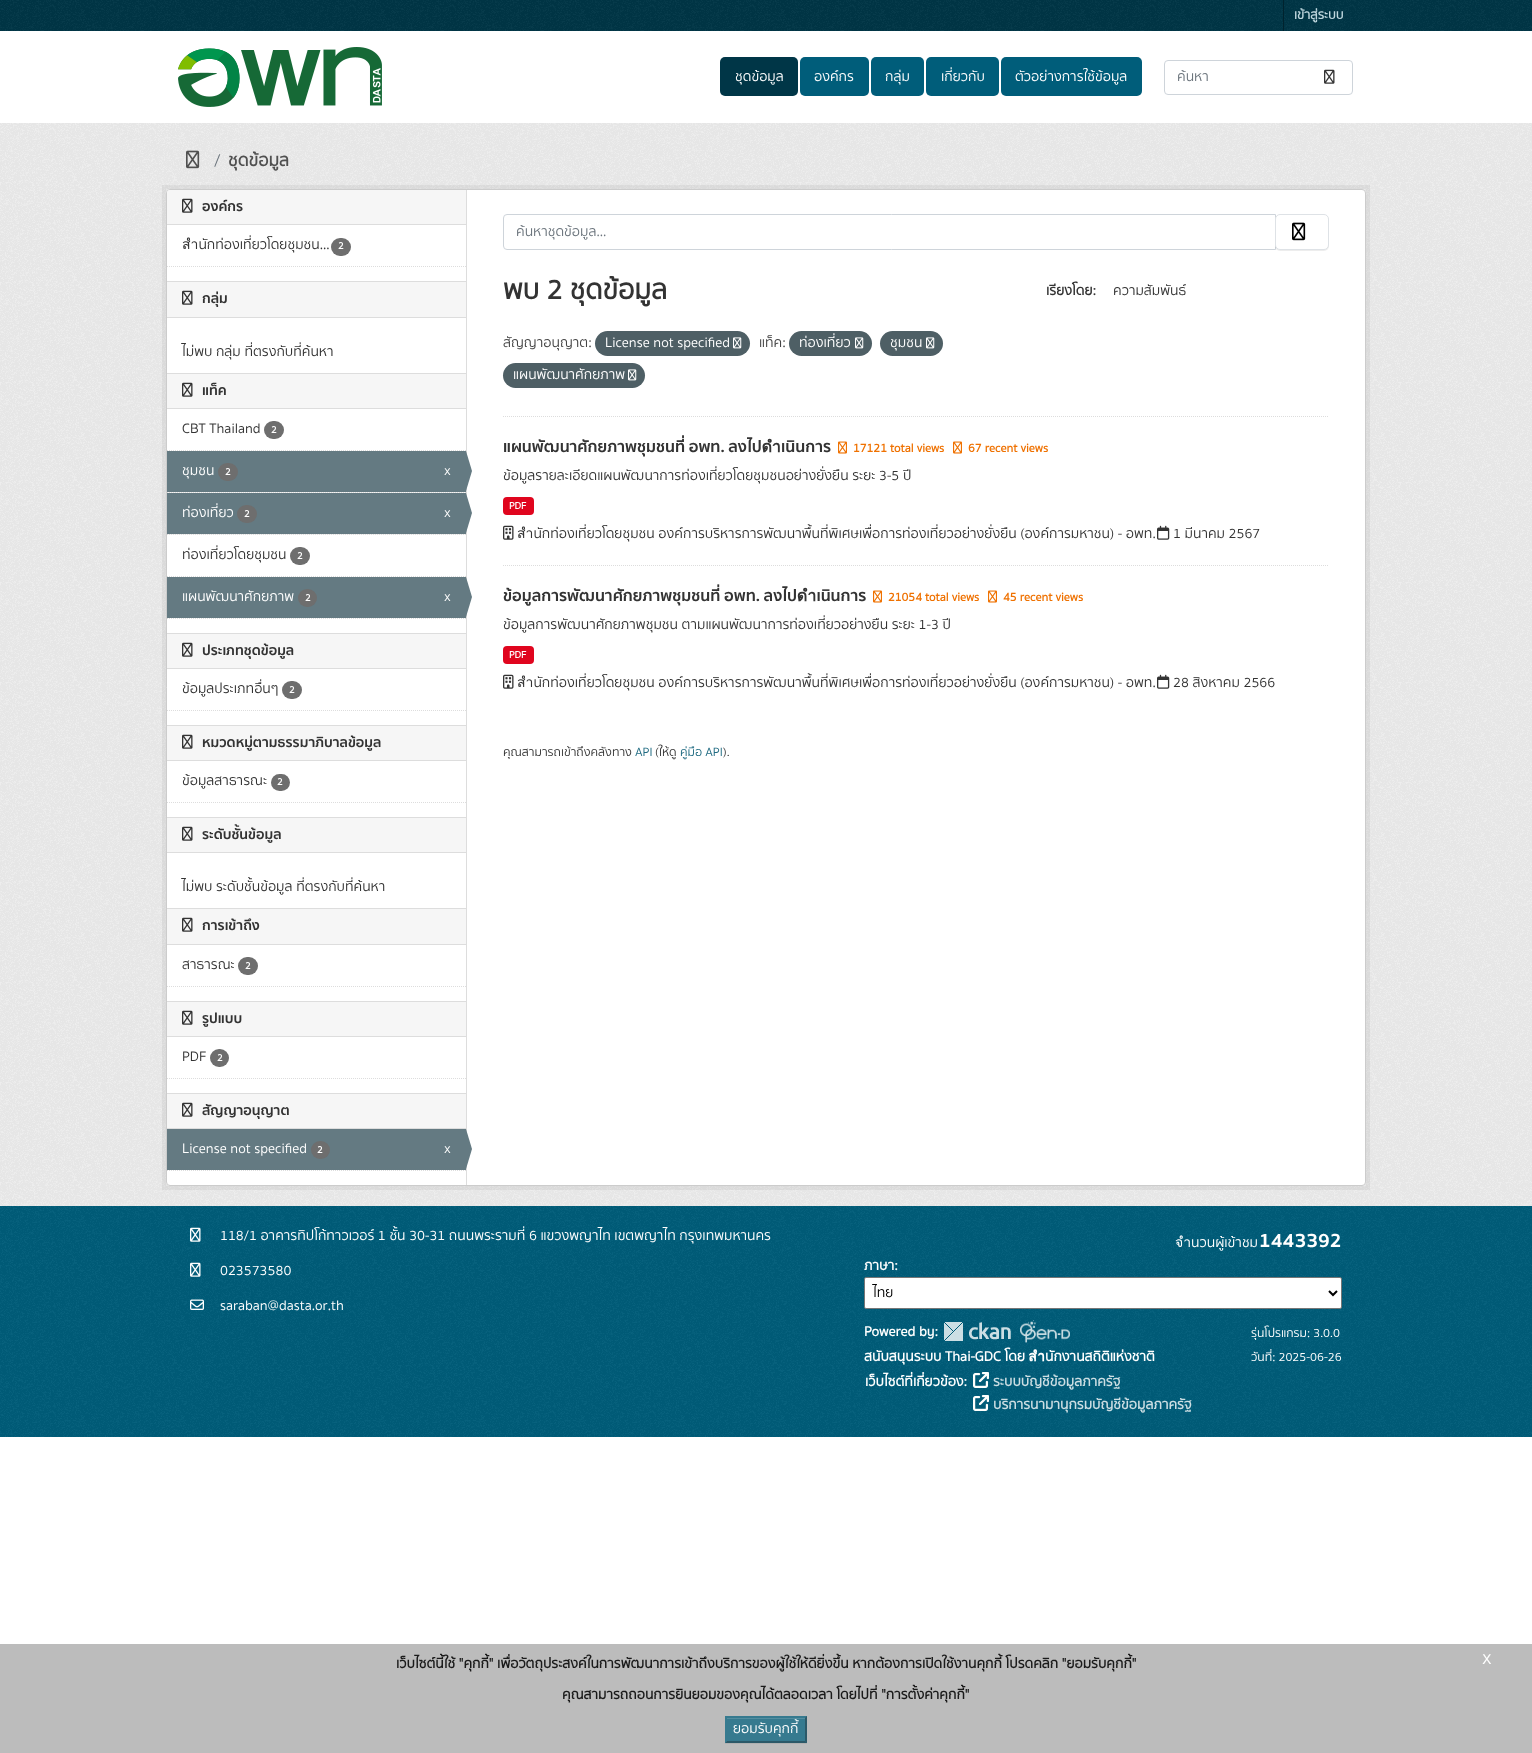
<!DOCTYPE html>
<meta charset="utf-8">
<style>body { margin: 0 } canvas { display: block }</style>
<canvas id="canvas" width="1532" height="1753"></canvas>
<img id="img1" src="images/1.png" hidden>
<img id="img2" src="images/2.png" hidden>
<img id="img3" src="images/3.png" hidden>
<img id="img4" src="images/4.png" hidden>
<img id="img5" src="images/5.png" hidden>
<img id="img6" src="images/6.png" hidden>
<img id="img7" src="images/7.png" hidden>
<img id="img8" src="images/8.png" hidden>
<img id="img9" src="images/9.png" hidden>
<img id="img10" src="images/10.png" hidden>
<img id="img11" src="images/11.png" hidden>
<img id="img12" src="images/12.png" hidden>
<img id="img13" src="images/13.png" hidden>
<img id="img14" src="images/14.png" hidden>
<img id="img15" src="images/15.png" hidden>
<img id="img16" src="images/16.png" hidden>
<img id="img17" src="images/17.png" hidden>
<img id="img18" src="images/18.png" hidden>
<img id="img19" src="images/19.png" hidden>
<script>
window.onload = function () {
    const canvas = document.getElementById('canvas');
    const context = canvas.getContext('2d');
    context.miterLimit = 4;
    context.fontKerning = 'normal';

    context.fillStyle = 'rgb(255, 255, 255)';
    context.fillRect(0, 0, 1532, 1753);
    context.fillStyle = 'rgb(0, 54, 71)';
    context.fillRect(0, 0, 1532, 31);
    context.drawImage(document.getElementById('img1'), 0, 0, 1532, 31);
    context.fillStyle = 'rgb(0, 35, 46)';
    context.fillRect(1283, 0, 1, 31);
    context.drawImage(document.getElementById('img2'), 178, 47, 204, 60);
    context.fillStyle = 'rgb(0, 54, 71)';
    context.beginPath();
    context.roundRect(720, 57, 78, 39, 5);
    context.fill();
    context.fillStyle = 'rgb(0, 93, 122)';
    context.beginPath();
    context.roundRect(800, 57, 69, 39, 5);
    context.fill();
    context.beginPath();
    context.roundRect(871, 57, 53, 39, 5);
    context.fill();
    context.beginPath();
    context.roundRect(926, 57, 73, 39, 5);
    context.fill();
    context.beginPath();
    context.roundRect(1001, 57, 141, 39, 5);
    context.fill();
    context.beginPath();
    context.roundRect(1164.5, 60.5, 188, 34, 3.5);
    context.strokeStyle = 'rgb(206, 212, 218)';
    context.stroke();
    context.drawImage(document.getElementById('img3'), 1324, 69, 11, 15);
    context.fillStyle = 'rgb(238, 238, 238)';
    context.fillRect(0, 123, 1532, 1083);
    context.drawImage(document.getElementById('img4'), 0, 123, 1532, 1083);
    context.drawImage(document.getElementById('img5'), 186, 150, 14, 19);
    context.strokeStyle = 'rgba(0, 0, 0, 0.05)';
    context.lineWidth = 4;
    context.strokeRect(164, 187, 1204, 1001);
    context.fillStyle = 'rgb(255, 255, 255)';
    context.beginPath();
    context.roundRect(166.5, 189.5, 1199, 996, 3.5);
    context.fill();
    context.strokeStyle = 'rgb(204, 204, 204)';
    context.lineWidth = 1;
    context.stroke();
    context.fillStyle = 'rgb(246, 246, 246)';
    context.beginPath();
    context.roundRect(167, 190, 299, 35, [3, 0, 0, 0]);
    context.fill();
    context.fillStyle = 'rgb(221, 221, 221)';
    context.fillRect(167, 224, 299, 1);
    context.drawImage(document.getElementById('img6'), 182, 198, 11, 15);
    context.fillStyle = 'rgb(110, 110, 110)';
    context.beginPath();
    context.roundRect(331, 238, 20, 18, 9);
    context.fill();
    context.beginPath();
    context.moveTo(167, 266.5);
    context.lineTo(466, 266.5);
    context.strokeStyle = 'rgb(221, 221, 221)';
    context.setLineDash([1, 1]);
    context.stroke();
    context.fillStyle = 'rgb(246, 246, 246)';
    context.fillRect(167, 282, 299, 35);
    context.fillStyle = 'rgb(221, 221, 221)';
    context.fillRect(167, 281, 299, 1);
    context.fillRect(167, 317, 299, 1);
    context.drawImage(document.getElementById('img6'), 182, 290, 11, 15);
    context.fillStyle = 'rgb(246, 246, 246)';
    context.fillRect(167, 374, 299, 34);
    context.fillStyle = 'rgb(221, 221, 221)';
    context.fillRect(167, 373, 299, 1);
    context.fillRect(167, 408, 299, 1);
    context.drawImage(document.getElementById('img6'), 182, 382, 11, 15);
    context.beginPath();
    context.moveTo(167, 450.5);
    context.lineTo(466, 450.5);
    context.stroke();
    context.fillStyle = 'rgb(110, 110, 110)';
    context.beginPath();
    context.roundRect(264, 421, 20, 18, 9);
    context.fill();
    context.fillStyle = 'rgb(246, 246, 246)';
    context.fillRect(168, 492, 297, 1);
    context.beginPath();
    context.moveTo(167, 492.5);
    context.lineTo(466, 492.5);
    context.stroke();
    context.fillStyle = 'rgb(100, 122, 130)';
    context.fillRect(167, 451, 299, 41);
    context.fillStyle = 'rgb(110, 110, 110)';
    context.beginPath();
    context.roundRect(218, 463, 20, 18, 9);
    context.fill();
    context.fillStyle = 'rgb(221, 221, 221)';
    context.fillRect(466, 190, 1, 995);
    context.fillStyle = 'rgb(100, 122, 130)';
    context.beginPath();
    context.moveTo(466, 491);
    context.lineTo(466, 451);
    context.lineTo(472, 471);
    context.closePath();
    context.fill();
    context.fillStyle = 'rgb(246, 246, 246)';
    context.fillRect(168, 534, 297, 1);
    context.beginPath();
    context.moveTo(167, 534.5);
    context.lineTo(466, 534.5);
    context.stroke();
    context.fillStyle = 'rgb(100, 122, 130)';
    context.fillRect(167, 493, 299, 41);
    context.fillStyle = 'rgb(110, 110, 110)';
    context.beginPath();
    context.roundRect(237, 505, 20, 18, 9);
    context.fill();
    context.fillStyle = 'rgb(100, 122, 130)';
    context.beginPath();
    context.moveTo(466, 533);
    context.lineTo(466, 493);
    context.lineTo(472, 513);
    context.closePath();
    context.fill();
    context.beginPath();
    context.moveTo(167, 576.5);
    context.lineTo(466, 576.5);
    context.stroke();
    context.fillStyle = 'rgb(110, 110, 110)';
    context.beginPath();
    context.roundRect(290, 547, 20, 18, 9);
    context.fill();
    context.fillStyle = 'rgb(100, 122, 130)';
    context.fillRect(167, 577, 299, 41);
    context.fillStyle = 'rgb(110, 110, 110)';
    context.beginPath();
    context.roundRect(298, 589, 19, 18, 9);
    context.fill();
    context.fillStyle = 'rgb(100, 122, 130)';
    context.beginPath();
    context.moveTo(466, 617);
    context.lineTo(466, 577);
    context.lineTo(472, 597);
    context.closePath();
    context.fill();
    context.beginPath();
    context.moveTo(167, 618.5);
    context.lineTo(466, 618.5);
    context.stroke();
    context.fillStyle = 'rgb(246, 246, 246)';
    context.fillRect(167, 634, 299, 34);
    context.fillStyle = 'rgb(221, 221, 221)';
    context.fillRect(167, 633, 299, 1);
    context.fillRect(167, 668, 299, 1);
    context.drawImage(document.getElementById('img6'), 182, 642, 11, 15);
    context.fillStyle = 'rgb(110, 110, 110)';
    context.beginPath();
    context.roundRect(282, 681, 20, 18, 9);
    context.fill();
    context.beginPath();
    context.moveTo(167, 710.5);
    context.lineTo(466, 710.5);
    context.stroke();
    context.fillStyle = 'rgb(246, 246, 246)';
    context.fillRect(167, 726, 299, 34);
    context.fillStyle = 'rgb(221, 221, 221)';
    context.fillRect(167, 725, 299, 1);
    context.fillRect(167, 760, 299, 1);
    context.drawImage(document.getElementById('img6'), 182, 734, 11, 15);
    context.fillStyle = 'rgb(110, 110, 110)';
    context.beginPath();
    context.roundRect(271, 774, 19, 17, 8.5);
    context.fill();
    context.beginPath();
    context.moveTo(167, 802.5);
    context.lineTo(466, 802.5);
    context.stroke();
    context.fillStyle = 'rgb(246, 246, 246)';
    context.fillRect(167, 818, 299, 34);
    context.fillStyle = 'rgb(221, 221, 221)';
    context.fillRect(167, 817, 299, 1);
    context.fillRect(167, 852, 299, 1);
    context.drawImage(document.getElementById('img6'), 182, 826, 11, 15);
    context.fillStyle = 'rgb(246, 246, 246)';
    context.fillRect(167, 909, 299, 35);
    context.fillStyle = 'rgb(221, 221, 221)';
    context.fillRect(167, 908, 299, 1);
    context.fillRect(167, 944, 299, 1);
    context.drawImage(document.getElementById('img6'), 182, 917, 11, 15);
    context.fillStyle = 'rgb(110, 110, 110)';
    context.beginPath();
    context.roundRect(238, 957, 20, 18, 9);
    context.fill();
    context.beginPath();
    context.moveTo(167, 986.5);
    context.lineTo(466, 986.5);
    context.stroke();
    context.fillStyle = 'rgb(246, 246, 246)';
    context.fillRect(167, 1002, 299, 34);
    context.fillStyle = 'rgb(221, 221, 221)';
    context.fillRect(167, 1001, 299, 1);
    context.fillRect(167, 1036, 299, 1);
    context.drawImage(document.getElementById('img6'), 182, 1010, 11, 15);
    context.fillStyle = 'rgb(110, 110, 110)';
    context.beginPath();
    context.roundRect(210, 1049, 19, 18, 9);
    context.fill();
    context.beginPath();
    context.moveTo(167, 1078.5);
    context.lineTo(466, 1078.5);
    context.stroke();
    context.fillStyle = 'rgb(246, 246, 246)';
    context.fillRect(167, 1094, 299, 34);
    context.fillStyle = 'rgb(221, 221, 221)';
    context.fillRect(167, 1093, 299, 1);
    context.fillRect(167, 1128, 299, 1);
    context.drawImage(document.getElementById('img6'), 182, 1102, 11, 15);
    context.fillStyle = 'rgb(100, 122, 130)';
    context.fillRect(167, 1129, 299, 41);
    context.fillStyle = 'rgb(110, 110, 110)';
    context.beginPath();
    context.roundRect(311, 1141, 19, 18, 9);
    context.fill();
    context.fillStyle = 'rgb(100, 122, 130)';
    context.beginPath();
    context.moveTo(466, 1169);
    context.lineTo(466, 1129);
    context.lineTo(472, 1149);
    context.closePath();
    context.fill();
    context.beginPath();
    context.moveTo(167, 1170.5);
    context.lineTo(466, 1170.5);
    context.stroke();
    context.beginPath();
    context.moveTo(503, 416.5);
    context.lineTo(1329, 416.5);
    context.stroke();
    context.beginPath();
    context.roundRect(503.5, 214.5, 772, 35, [3.5, 0, 0, 3.5]);
    context.strokeStyle = 'rgb(206, 212, 218)';
    context.setLineDash([]);
    context.stroke();
    context.fillStyle = 'rgba(0, 0, 0, 0.07)';
    context.filter = 'blur(0.5px)';
    context.beginPath();
    context.roundRect(1275, 215, 54, 36, 5);
    context.fill();
    context.filter = 'none';
    context.fillStyle = 'rgb(255, 255, 255)';
    context.beginPath();
    context.roundRect(1275.5, 214.5, 53, 35, 4.5);
    context.fill();
    context.strokeStyle = 'rgb(222, 226, 230)';
    context.stroke();
    context.drawImage(document.getElementById('img7'), 1292, 222, 14, 19);
    context.fillStyle = 'rgb(78, 95, 101)';
    context.beginPath();
    context.roundRect(595, 331, 155, 25, 12.5);
    context.fill();
    context.drawImage(document.getElementById('img8'), 733, 337, 9, 12);
    context.beginPath();
    context.roundRect(789, 331, 83, 25, 12.5);
    context.fill();
    context.drawImage(document.getElementById('img8'), 855, 337, 9, 12);
    context.beginPath();
    context.roundRect(880, 331, 63, 25, 12.5);
    context.fill();
    context.drawImage(document.getElementById('img8'), 926, 337, 9, 12);
    context.beginPath();
    context.roundRect(503, 363, 142, 25, 12.5);
    context.fill();
    context.drawImage(document.getElementById('img8'), 628, 369, 9, 12);
    context.beginPath();
    context.moveTo(503, 565.5);
    context.lineTo(1329, 565.5);
    context.strokeStyle = 'rgb(221, 221, 221)';
    context.setLineDash([1, 1]);
    context.stroke();
    context.drawImage(document.getElementById('img9'), 838, 441, 9, 13);
    context.drawImage(document.getElementById('img9'), 953, 441, 9, 13);
    context.fillStyle = 'rgb(224, 5, 30)';
    context.beginPath();
    context.roundRect(503, 497, 31, 18, 4);
    context.fill();
    context.drawImage(document.getElementById('img10'), 503, 525, 11, 15);
    context.drawImage(document.getElementById('img11'), 1157, 525, 13, 15);
    context.drawImage(document.getElementById('img9'), 873, 590, 9, 13);
    context.drawImage(document.getElementById('img9'), 988, 590, 9, 13);
    context.beginPath();
    context.roundRect(503, 646, 31, 18, 4);
    context.fill();
    context.drawImage(document.getElementById('img10'), 503, 674, 11, 15);
    context.drawImage(document.getElementById('img11'), 1157, 674, 13, 15);
    context.fillStyle = 'rgb(0, 93, 122)';
    context.fillRect(0, 1206, 1532, 231);
    context.drawImage(document.getElementById('img12'), 0, 1206, 1532, 231);
    context.drawImage(document.getElementById('img13'), 190, 1227, 11, 15);
    context.drawImage(document.getElementById('img14'), 190, 1262, 11, 15);
    context.drawImage(document.getElementById('img15'), 190, 1299, 14, 11);
    context.fillStyle = 'rgb(255, 255, 255)';
    context.beginPath();
    context.roundRect(864.5, 1277.5, 477, 31, 1.5);
    context.fill();
    context.strokeStyle = 'rgb(118, 118, 118)';
    context.setLineDash([]);
    context.stroke();
    context.beginPath();
    context.moveTo(1329, 1291);
    context.lineTo(1333, 1295);
    context.lineTo(1337, 1291);
    context.strokeStyle = 'rgb(0, 0, 0)';
    context.lineWidth = 2;
    context.stroke();
    context.drawImage(document.getElementById('img16'), 944, 1322, 67, 19);
    context.drawImage(document.getElementById('img17'), 1020, 1320, 50, 23);
    context.drawImage(document.getElementById('img18'), 973, 1372, 16, 16);
    context.drawImage(document.getElementById('img19'), 973, 1395, 16, 16);
    context.fillStyle = 'rgb(188, 188, 188)';
    context.fillRect(0, 1644, 1532, 109);
    context.fillStyle = 'rgba(26, 26, 26, 0.07)';
    context.filter = 'blur(0.5px)';
    context.beginPath();
    context.rect(725, 1717, 82, 27);
    context.fill();
    context.filter = 'none';
    context.fillStyle = 'rgb(54, 122, 143)';
    context.fillRect(725, 1716, 82, 27);
    context.fillStyle = 'rgb(84, 142, 160)';
    context.fillRect(727, 1718, 78, 1);
    context.fillStyle = 'rgb(44, 89, 104)';
    context.beginPath();
    context.moveTo(807, 1716);
    context.lineTo(807, 1743);
    context.lineTo(805, 1741);
    context.lineTo(805, 1718);
    context.closePath();
    context.fill();
    context.beginPath();
    context.moveTo(807, 1743);
    context.lineTo(725, 1743);
    context.lineTo(727, 1741);
    context.lineTo(805, 1741);
    context.closePath();
    context.fill();
    context.fillStyle = 'rgb(54, 122, 143)';
    context.beginPath();
    context.moveTo(725, 1743);
    context.lineTo(725, 1716);
    context.lineTo(727, 1718);
    context.lineTo(727, 1741);
    context.closePath();
    context.fill();
    context.font = 'bold 13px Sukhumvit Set';
    context.fillStyle = 'rgb(191, 215, 222)';
    context.fillText('เข้าสู่ระบบ', 1294, 19);
    context.font = '14px Sukhumvit Set';
    context.fillStyle = 'rgb(255, 255, 255)';
    context.fillText('ชุดข้อมูล', 735, 81);
    context.fillText('องค์กร', 814, 81);
    context.fillText('กลุ่ม', 885, 81);
    context.fillText('เกี่ยวกับ', 941, 81);
    context.fillText('ตัวอย่างการใช้ข้อมูล', 1015, 81);
    context.save();
    context.beginPath();
    context.rect(1177, 67, 163, 20);
    context.clip();
    context.fillStyle = 'rgb(108, 117, 125)';
    context.fillText('ค้นหา', 1177, 81);
    context.restore();
    context.font = '17.5px Sukhumvit Set';
    context.fillStyle = 'rgb(108, 117, 125)';
    context.fillText('/', 214, 166);
    context.font = 'bold 17.5px Sukhumvit Set';
    context.fillStyle = 'rgb(80, 80, 80)';
    context.fillText('ชุดข้อมูล', 228, 166);
    context.font = 'bold 14px "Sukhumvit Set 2"';
    context.fillStyle = 'rgb(51, 51, 51)';
    context.fillText('องค์กร', 202, 211);
    context.font = '14px Sukhumvit Set';
    context.fillText('สำนักท่องเที่ยวโดยชุมชน...', 182, 249);
    context.font = 'bold 10px Sukhumvit Set';
    context.fillStyle = 'rgb(255, 255, 255)';
    context.fillText('2', 338, 249);
    context.font = 'bold 14px "Sukhumvit Set 2"';
    context.fillStyle = 'rgb(51, 51, 51)';
    context.fillText('กลุ่ม', 202, 303);
    context.font = '14px Sukhumvit Set';
    context.fillText('ไม่พบ กลุ่ม ที่ตรงกับที่ค้นหา', 182, 356);
    context.font = 'bold 14px "Sukhumvit Set 2"';
    context.fillText('แท็ค', 202, 395);
    context.font = '14px Sukhumvit Set';
    context.fillText('CBT Thailand', 182, 433);
    context.font = 'bold 10px Sukhumvit Set';
    context.fillStyle = 'rgb(255, 255, 255)';
    context.fillText('2', 271, 433);
    context.font = '14px Sukhumvit Set';
    context.fillText('ชุมชน', 182, 475);
    context.font = 'bold 10px Sukhumvit Set';
    context.fillText('2', 225, 475);
    context.font = '14px Sukhumvit Set';
    context.fillText('x', 444, 475);
    context.fillText('ท่องเที่ยว', 182, 517);
    context.font = 'bold 10px Sukhumvit Set';
    context.fillText('2', 244, 517);
    context.font = '14px Sukhumvit Set';
    context.fillText('x', 444, 517);
    context.fillStyle = 'rgb(51, 51, 51)';
    context.fillText('ท่องเที่ยวโดยชุมชน', 182, 559);
    context.font = 'bold 10px Sukhumvit Set';
    context.fillStyle = 'rgb(255, 255, 255)';
    context.fillText('2', 297, 559);
    context.font = '14px Sukhumvit Set';
    context.fillText('แผนพัฒนาศักยภาพ', 182, 601);
    context.font = 'bold 10px Sukhumvit Set';
    context.fillText('2', 305, 601);
    context.font = '14px Sukhumvit Set';
    context.fillText('x', 444, 601);
    context.font = 'bold 14px "Sukhumvit Set 2"';
    context.fillStyle = 'rgb(51, 51, 51)';
    context.fillText('ประเภทชุดข้อมูล', 202, 655);
    context.font = '14px Sukhumvit Set';
    context.fillText('ข้อมูลประเภทอื่นๆ', 182, 693);
    context.font = 'bold 10px Sukhumvit Set';
    context.fillStyle = 'rgb(255, 255, 255)';
    context.fillText('2', 289, 693);
    context.font = 'bold 14px "Sukhumvit Set 2"';
    context.fillStyle = 'rgb(51, 51, 51)';
    context.fillText('หมวดหมู่ตามธรรมาภิบาลข้อมูล', 202, 747);
    context.font = '14px Sukhumvit Set';
    context.fillText('ข้อมูลสาธารณะ', 182, 785);
    context.font = 'bold 10px Sukhumvit Set';
    context.fillStyle = 'rgb(255, 255, 255)';
    context.fillText('2', 277, 785);
    context.font = 'bold 14px "Sukhumvit Set 2"';
    context.fillStyle = 'rgb(51, 51, 51)';
    context.fillText('ระดับชั้นข้อมูล', 202, 839);
    context.font = '14px Sukhumvit Set';
    context.fillText('ไม่พบ ระดับชั้นข้อมูล ที่ตรงกับที่ค้นหา', 182, 891);
    context.font = 'bold 14px "Sukhumvit Set 2"';
    context.fillText('การเข้าถึง', 202, 930);
    context.font = '14px Sukhumvit Set';
    context.fillText('สาธารณะ', 182, 969);
    context.font = 'bold 10px Sukhumvit Set';
    context.fillStyle = 'rgb(255, 255, 255)';
    context.fillText('2', 245, 969);
    context.font = 'bold 14px "Sukhumvit Set 2"';
    context.fillStyle = 'rgb(51, 51, 51)';
    context.fillText('รูปแบบ', 202, 1023);
    context.font = '14px Sukhumvit Set';
    context.fillText('PDF', 182, 1061);
    context.font = 'bold 10px Sukhumvit Set';
    context.fillStyle = 'rgb(255, 255, 255)';
    context.fillText('2', 217, 1061);
    context.font = 'bold 14px "Sukhumvit Set 2"';
    context.fillStyle = 'rgb(51, 51, 51)';
    context.fillText('สัญญาอนุญาต', 202, 1115);
    context.font = '14px Sukhumvit Set';
    context.fillStyle = 'rgb(255, 255, 255)';
    context.fillText('License not specified', 182, 1153);
    context.font = 'bold 10px Sukhumvit Set';
    context.fillText('2', 317, 1153);
    context.font = '14px Sukhumvit Set';
    context.fillText('x', 444, 1153);
    context.save();
    context.beginPath();
    context.rect(516, 222, 747, 20);
    context.clip();
    context.fillStyle = 'rgb(108, 117, 125)';
    context.fillText('ค้นหาชุดข้อมูล...', 516, 236);
    context.restore();
    context.font = 'bold 28px Sukhumvit Set';
    context.fillStyle = 'rgb(51, 51, 51)';
    context.fillText('พบ 2 ชุดข้อมูล', 503, 299);
    context.font = 'bold 14px Sukhumvit Set';
    context.fillText('เรียงโดย:', 1046, 295);
    context.font = '14px Sukhumvit Set';
    context.fillText('ความสัมพันธ์', 1113, 295);
    context.fillStyle = 'rgb(68, 68, 68)';
    context.fillText('สัญญาอนุญาต:', 503, 347);
    context.fillStyle = 'rgb(255, 255, 255)';
    context.fillText('License not specified', 605, 347);
    context.fillStyle = 'rgb(68, 68, 68)';
    context.fillText('แท็ค:', 759, 347);
    context.fillStyle = 'rgb(255, 255, 255)';
    context.fillText('ท่องเที่ยว', 799, 347);
    context.fillText('ชุมชน', 890, 347);
    context.fillText('แผนพัฒนาศักยภาพ', 513, 379);
    context.font = 'bold 16px "Sukhumvit Set 2"';
    context.fillStyle = 'rgb(51, 51, 51)';
    context.fillText('แผนพัฒนาศักยภาพชุมชนที่ อพท. ลงไปดำเนินการ', 503, 452);
    context.font = 'bold 12px Sukhumvit Set';
    context.fillStyle = 'rgb(239, 113, 0)';
    context.fillText('17121 total views', 853, 452);
    context.fillText('67 recent views', 968, 452);
    context.font = '14px Sukhumvit Set';
    context.fillStyle = 'rgb(51, 51, 51)';
    context.fillText('ข้อมูลรายละเอียดแผนพัฒนาการท่องเที่ยวโดยชุมชนอย่างยั่งยืน ระยะ 3-5 ปี', 503, 480);
    context.font = 'bold 10px Sukhumvit Set';
    context.fillStyle = 'rgb(255, 255, 255)';
    context.fillText('PDF', 509, 509);
    context.font = '14px Sukhumvit Set';
    context.fillStyle = 'rgb(51, 51, 51)';
    context.fillText('สำนักท่องเที่ยวโดยชุมชน องค์การบริหารการพัฒนาพื้นที่พิเศษเพื่อการท่องเที่ยวอย่างยั่งยืน (องค์การมหาชน) - อพท.', 517, 538);
    context.fillText('1 มีนาคม 2567', 1173, 538);
    context.font = 'bold 16px "Sukhumvit Set 2"';
    context.fillText('ข้อมูลการพัฒนาศักยภาพชุมชนที่ อพท. ลงไปดำเนินการ', 503, 601);
    context.font = 'bold 12px Sukhumvit Set';
    context.fillStyle = 'rgb(239, 113, 0)';
    context.fillText('21054 total views', 888, 601);
    context.fillText('45 recent views', 1003, 601);
    context.font = '14px Sukhumvit Set';
    context.fillStyle = 'rgb(51, 51, 51)';
    context.fillText('ข้อมูลการพัฒนาศักยภาพชุมชน ตามแผนพัฒนาการท่องเที่ยวอย่างยืน ระยะ 1-3 ปี', 503, 629);
    context.font = 'bold 10px Sukhumvit Set';
    context.fillStyle = 'rgb(255, 255, 255)';
    context.fillText('PDF', 509, 658);
    context.font = '14px Sukhumvit Set';
    context.fillStyle = 'rgb(51, 51, 51)';
    context.fillText('สำนักท่องเที่ยวโดยชุมชน องค์การบริหารการพัฒนาพื้นที่พิเศษเพื่อการท่องเที่ยวอย่างยั่งยืน (องค์การมหาชน) - อพท.', 517, 687);
    context.fillText('28 สิงหาคม 2566', 1173, 687);
    context.font = '12.25px Sukhumvit Set';
    context.fillText('คุณสามารถเข้าถึงคลังทาง', 503, 756);
    context.fillStyle = 'rgb(32, 107, 130)';
    context.fillText('API', 635, 756);
    context.fillStyle = 'rgb(51, 51, 51)';
    context.fillText('(ให้ดู', 655, 756);
    context.fillStyle = 'rgb(32, 107, 130)';
    context.fillText('คู่มือ API', 680, 756);
    context.fillStyle = 'rgb(51, 51, 51)';
    context.fillText(').', 723, 756);
    context.font = '14px Sukhumvit Set';
    context.fillStyle = 'rgb(255, 255, 255)';
    context.fillText('118/1 อาคารทิปโก้ทาวเวอร์ 1 ชั้น 30-31 ถนนพระรามที่ 6 แขวงพญาไท เขตพญาไท กรุงเทพมหานคร', 220, 1240);
    context.fillText('023573580', 220, 1275);
    context.fillText('saraban@dasta.or.th', 220, 1310);
    context.fillText('จำนวนผู้เข้าชม', 1175, 1247);
    context.font = 'bold 20px "Sukhumvit Set 2"';
    context.fillText('1443392', 1259, 1247);
    context.font = 'bold 14px Sukhumvit Set';
    context.fillText('ภาษา:', 864, 1270);
    context.font = '14px Sukhumvit Set';
    context.fillStyle = 'rgb(0, 0, 0)';
    context.fillText('ไทย', 873, 1297);
    context.font = 'bold 14px Sukhumvit Set';
    context.fillStyle = 'rgb(255, 255, 255)';
    context.fillText('Powered by:', 864, 1336);
    context.fillText('สนับสนุนระบบ Thai-GDC โดย สำนักงานสถิติแห่งชาติ', 864, 1361);
    context.fillText('เว็บไซต์ที่เกี่ยวข้อง:', 865, 1386);
    context.fillStyle = 'rgb(204, 222, 227)';
    context.fillText('ระบบบัญชีข้อมูลภาครัฐ', 993, 1386);
    context.fillText('บริการนามานุกรมบัญชีข้อมูลภาครัฐ', 993, 1409);
    context.font = '12.25px Sukhumvit Set';
    context.fillStyle = 'rgb(255, 255, 255)';
    context.fillText('รุ่นโปรแกรม: 3.0.0', 1251, 1337);
    context.fillText('วันที่: 2025-06-26', 1251, 1361);
    context.font = 'bold 14px Sukhumvit Set';
    context.fillStyle = 'rgb(26, 26, 26)';
    context.fillText('เว็บไซต์นี้ใช้ "คุกกี้" เพื่อวัตถุประสงค์ในการพัฒนาการเข้าถึงบริการของผู้ใช้ให้ดียิ่งขึ้น หากต้องการเปิดใช้งานคุกกี้ โปรดคลิก "ยอมรับคุกกี้"', 396, 1668);
    context.font = '20px Sukhumvit Set';
    context.fillStyle = 'rgb(255, 255, 255)';
    context.fillText('x', 1482, 1664);
    context.font = 'bold 14px Sukhumvit Set';
    context.fillStyle = 'rgb(26, 26, 26)';
    context.fillText('คุณสามารถถอนการยินยอมของคุณได้ตลอดเวลา โดยไปที่ "การตั้งค่าคุกกี้"', 562, 1699);
    context.font = '14px Sukhumvit Set';
    context.fillStyle = 'rgb(255, 255, 255)';
    context.fillText('ยอมรับคุกกี้', 733, 1733);
};
</script>
